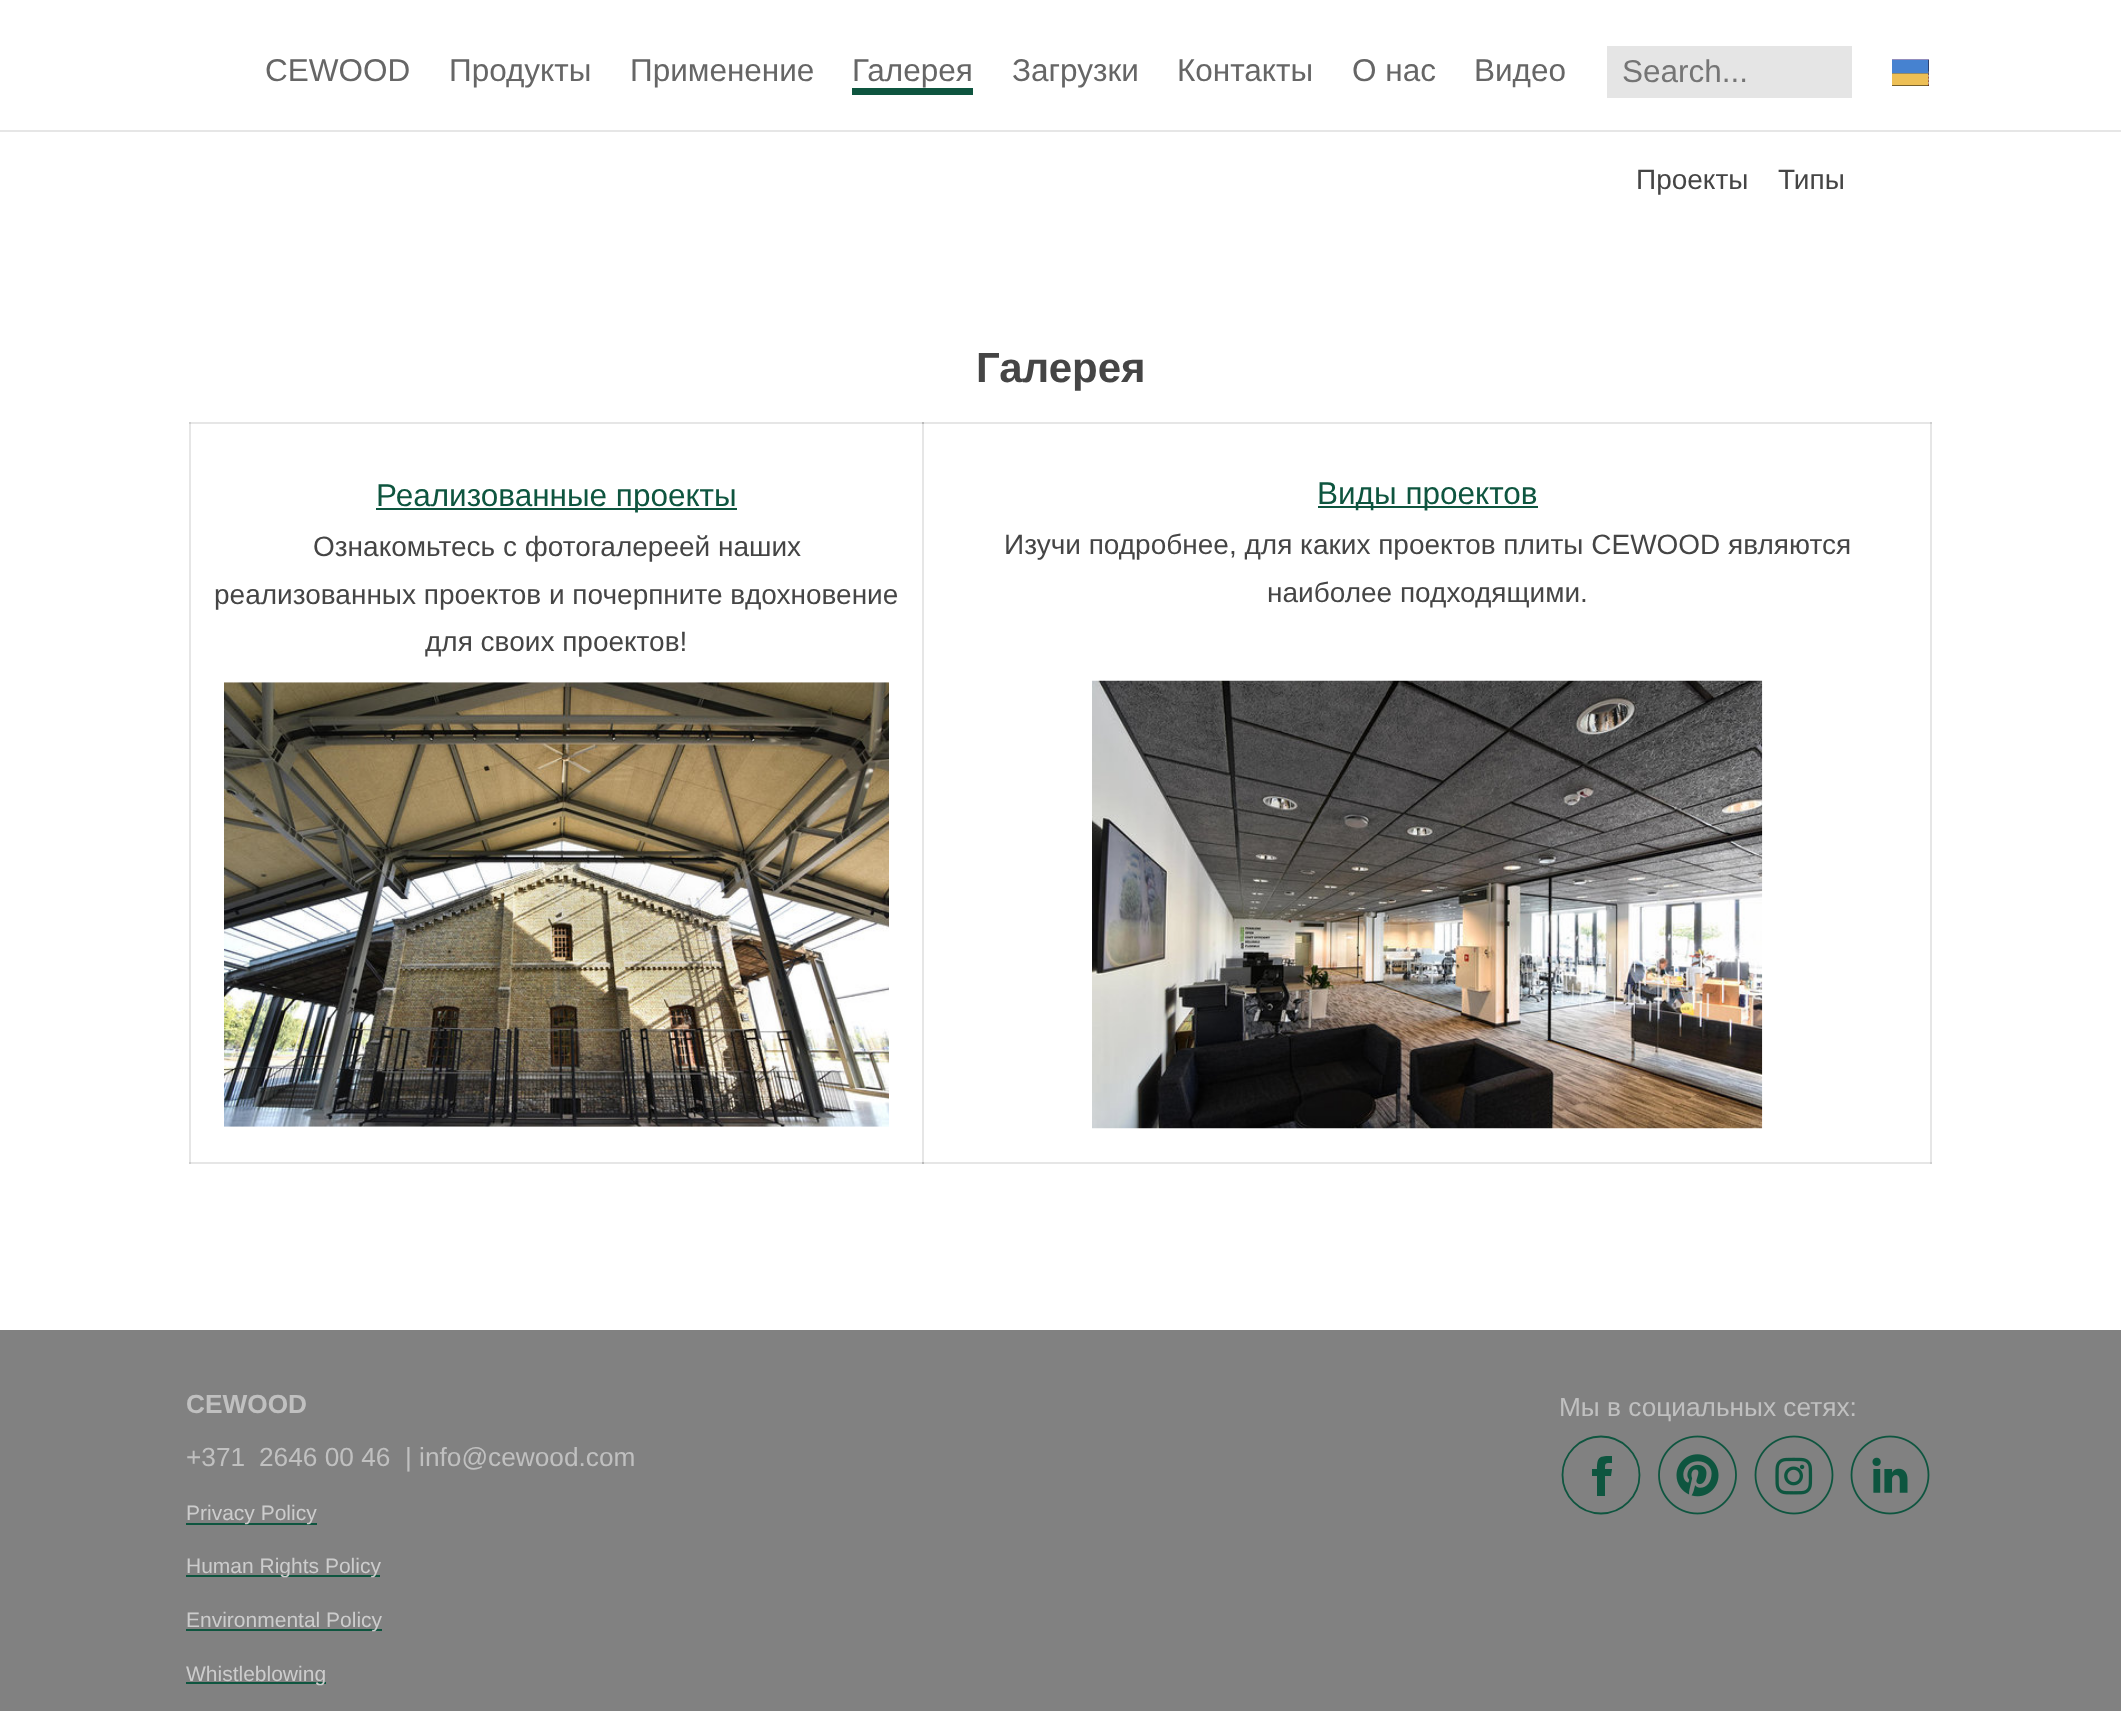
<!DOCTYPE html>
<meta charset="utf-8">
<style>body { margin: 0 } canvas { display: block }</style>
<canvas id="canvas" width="2121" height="1711"></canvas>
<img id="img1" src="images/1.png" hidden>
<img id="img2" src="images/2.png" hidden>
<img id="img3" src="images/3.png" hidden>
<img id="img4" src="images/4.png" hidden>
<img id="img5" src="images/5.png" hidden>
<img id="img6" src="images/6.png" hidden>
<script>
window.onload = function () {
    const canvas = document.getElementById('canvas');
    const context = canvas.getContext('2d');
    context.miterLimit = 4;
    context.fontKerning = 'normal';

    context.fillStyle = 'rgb(255, 255, 255)';
    context.fillRect(0, 0, 2121, 1711);
    context.fillStyle = 'rgb(230, 230, 230)';
    context.fillRect(189, 422, 2, 742);
    context.fillRect(189, 1162, 735, 2);
    context.fillStyle = 'rgb(207, 207, 207)';
    context.fillRect(189, 1162, 2, 2);
    context.fillStyle = 'rgb(230, 230, 230)';
    context.fillRect(922, 422, 2, 742);
    context.fillRect(189, 422, 735, 2);
    context.fillStyle = 'rgb(207, 207, 207)';
    context.fillRect(189, 422, 2, 2);
    context.fillStyle = 'rgb(230, 230, 230)';
    context.fillRect(922, 1162, 1010, 2);
    context.fillStyle = 'rgb(186, 186, 186)';
    context.fillRect(922, 1162, 2, 2);
    context.fillStyle = 'rgb(230, 230, 230)';
    context.fillRect(1930, 422, 2, 742);
    context.fillStyle = 'rgb(207, 207, 207)';
    context.fillRect(1930, 1162, 2, 2);
    context.fillStyle = 'rgb(230, 230, 230)';
    context.fillRect(0, 130, 2121, 2);
    context.fillStyle = 'rgb(14, 85, 63)';
    context.fillRect(852, 88, 121, 7);
    context.fillStyle = 'rgb(229, 229, 229)';
    context.fillRect(1607, 46, 245, 52);
    context.fillStyle = 'rgb(0, 0, 0)';
    context.fillRect(1892, 60, 37, 26);
    context.drawImage(document.getElementById('img1'), 1892, 59, 37, 27);
    context.fillStyle = 'rgb(14, 85, 63)';
    context.fillRect(376, 508, 361, 2);
    context.drawImage(document.getElementById('img2'), 224, 682, 665, 445);
    context.fillStyle = 'rgb(230, 230, 230)';
    context.fillRect(922, 422, 1010, 2);
    context.fillStyle = 'rgb(186, 186, 186)';
    context.fillRect(922, 422, 2, 2);
    context.fillStyle = 'rgb(207, 207, 207)';
    context.fillRect(1930, 422, 2, 2);
    context.fillStyle = 'rgb(14, 85, 63)';
    context.fillRect(1318, 506, 220, 2);
    context.drawImage(document.getElementById('img3'), 1092, 680, 671, 449);
    context.fillStyle = 'rgb(129, 129, 129)';
    context.fillRect(0, 1330, 2121, 381);
    context.fillStyle = 'rgb(14, 85, 63)';
    context.fillRect(186, 1523, 131, 2);
    context.fillRect(186, 1575, 194, 2);
    context.fillRect(186, 1629, 196, 2);
    context.fillRect(186, 1682, 140, 2);
    context.beginPath();
    context.arc(1601, 1475, 38.5, 0, 2 * Math.PI);
    context.strokeStyle = 'rgb(14, 85, 63)';
    context.lineWidth = 1.8;
    context.stroke();
    context.drawImage(document.getElementById('img4'), 1658, 1435, 79, 80);
    context.drawImage(document.getElementById('img5'), 1754, 1435, 80, 80);
    context.drawImage(document.getElementById('img6'), 1850, 1435, 80, 80);
    context.beginPath();
    context.moveTo(1605, 1496);
    context.lineTo(1597, 1496);
    context.lineTo(1597, 1476);
    context.lineTo(1592, 1476);
    context.lineTo(1592, 1469);
    context.lineTo(1597, 1469);
    context.bezierCurveTo(1597, 1456, 1600, 1456, 1612, 1456);
    context.lineTo(1612, 1463);
    context.bezierCurveTo(1605, 1463, 1605, 1463, 1605, 1469);
    context.lineTo(1612, 1469);
    context.lineTo(1611, 1476);
    context.lineTo(1605, 1476);
    context.closePath();
    context.fill('evenodd');
    context.font = '31.5px Liberation Sans';
    context.fillStyle = 'rgb(102, 102, 102)';
    context.fillText('CEWOOD', 265, 81);
    context.fillText('Продукты', 449, 81);
    context.fillText('Применение', 630, 81);
    context.fillText('Галерея', 852, 81);
    context.fillText('Загрузки', 1012, 81);
    context.fillText('Контакты', 1177, 81);
    context.fillText('О нас', 1352, 81);
    context.fillText('Видео', 1474, 81);
    context.fillStyle = 'rgb(117, 117, 117)';
    context.fillText('Search...', 1622, 82);
    context.font = '28px Liberation Sans';
    context.fillStyle = 'rgb(69, 69, 69)';
    context.fillText('Проекты', 1636, 189);
    context.fillText('Типы', 1778, 189);
    context.font = 'bold 42px Liberation Sans';
    context.fillText('Галерея', 976, 382);
    context.font = '31.5px Liberation Sans';
    context.fillStyle = 'rgb(14, 85, 63)';
    context.fillText('Реализованные проекты', 376, 506);
    context.font = '28px Liberation Sans';
    context.fillStyle = 'rgb(69, 69, 69)';
    context.fillText('Ознакомьтесь с фотогалереей наших', 313, 556);
    context.fillText('реализованных проектов и почерпните вдохновение', 214, 604);
    context.fillText('для своих проектов!', 425, 651);
    context.font = '31.5px Liberation Sans';
    context.fillStyle = 'rgb(14, 85, 63)';
    context.fillText('Виды проектов', 1317, 504);
    context.font = '28px Liberation Sans';
    context.fillStyle = 'rgb(69, 69, 69)';
    context.fillText('Изучи подробнее, для каких проектов плиты CEWOOD являются', 1004, 554);
    context.fillText('наиболее подходящими.', 1267, 602);
    context.font = 'bold 26.25px Liberation Sans';
    context.fillStyle = 'rgb(192, 192, 192)';
    context.fillText('CEWOOD', 186, 1413);
    context.font = '26.25px Liberation Sans';
    context.fillText('+371', 186, 1466);
    context.fillText('2646 00 46  | info@cewood.com', 259, 1466);
    context.font = '21px Liberation Sans';
    context.fillStyle = 'rgb(204, 204, 204)';
    context.fillText('Privacy Policy', 186, 1520);
    context.fillText('Human Rights Policy', 186, 1573);
    context.fillText('Environmental Policy', 186, 1627);
    context.fillText('Whistleblowing', 186, 1681);
    context.font = '26.25px Liberation Sans';
    context.fillStyle = 'rgb(192, 192, 192)';
    context.fillText('Мы в социальных сетях:', 1559, 1416);
};
</script>
